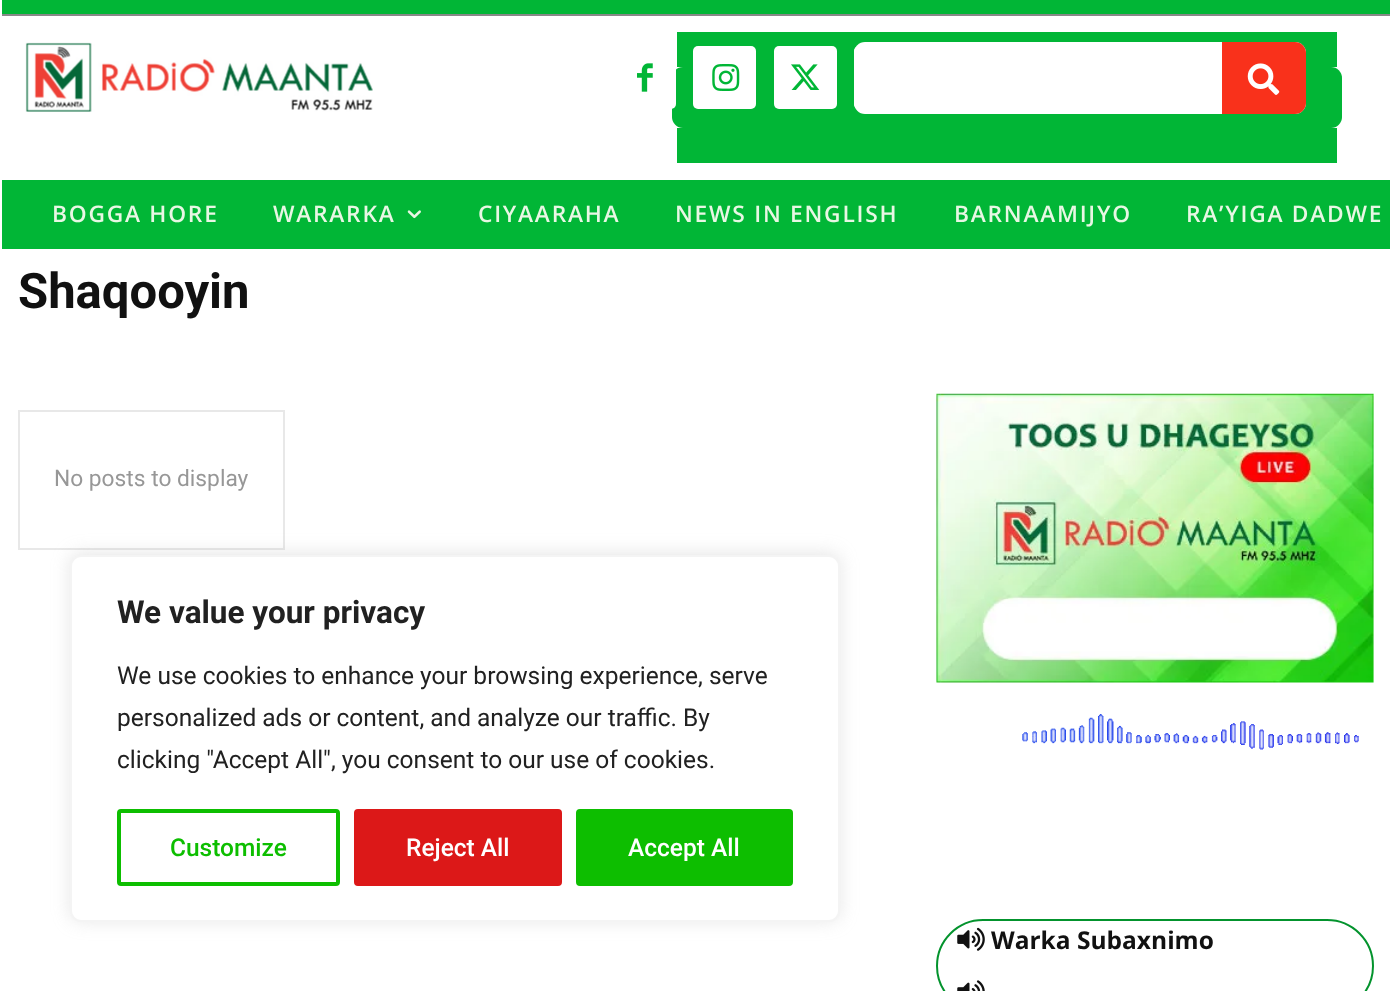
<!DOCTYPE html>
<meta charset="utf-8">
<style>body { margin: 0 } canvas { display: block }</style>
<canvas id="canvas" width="1390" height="991"></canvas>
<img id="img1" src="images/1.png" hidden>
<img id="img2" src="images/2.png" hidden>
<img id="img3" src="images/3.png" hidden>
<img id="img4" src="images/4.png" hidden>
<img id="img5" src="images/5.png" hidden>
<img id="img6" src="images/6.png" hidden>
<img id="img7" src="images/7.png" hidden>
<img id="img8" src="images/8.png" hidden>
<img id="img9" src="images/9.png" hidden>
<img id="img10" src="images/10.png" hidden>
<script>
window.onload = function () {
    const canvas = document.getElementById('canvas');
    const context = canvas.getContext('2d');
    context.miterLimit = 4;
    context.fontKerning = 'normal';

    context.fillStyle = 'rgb(255, 255, 255)';
    context.fillRect(0, 0, 1390, 991);
    context.fillStyle = 'rgb(1, 182, 54)';
    context.fillRect(2, 0, 1388, 14);
    context.fillStyle = 'rgb(136, 136, 136)';
    context.fillRect(2, 14, 1388, 2);
    context.fillStyle = 'rgb(1, 182, 54)';
    context.fillRect(677, 32, 660, 35);
    context.fillRect(677, 128, 660, 35);
    context.beginPath();
    context.roundRect(672, 67, 670, 61, 11);
    context.fill();
    context.drawImage(document.getElementById('img1'), 25, 42, 348, 70);
    context.fillStyle = 'rgb(255, 255, 255)';
    context.beginPath();
    context.roundRect(613, 46, 63, 63, 5);
    context.fill();
    context.drawImage(document.getElementById('img2'), 637, 63, 16, 29);
    context.beginPath();
    context.roundRect(693, 46, 63, 63, 5);
    context.fill();
    context.drawImage(document.getElementById('img3'), 712, 64, 28, 27);
    context.beginPath();
    context.roundRect(774, 46, 63, 63, 5);
    context.fill();
    context.drawImage(document.getElementById('img4'), 791, 64, 29, 26);
    context.beginPath();
    context.roundRect(854, 46, 63, 63, 5);
    context.fill();
    context.beginPath();
    context.roundRect(854, 42, 452, 72, 11);
    context.fill();
    context.fillStyle = 'rgb(249, 49, 27)';
    context.beginPath();
    context.roundRect(1222, 42, 84, 72, [0, 11, 11, 0]);
    context.fill();
    context.drawImage(document.getElementById('img5'), 1247, 63, 33, 32);
    context.fillStyle = 'rgb(1, 182, 54)';
    context.fillRect(2, 180, 1388, 69);
    context.drawImage(document.getElementById('img6'), 407, 210, 14, 9);
    context.strokeStyle = 'rgb(232, 232, 232)';
    context.lineWidth = 2;
    context.strokeRect(19, 411, 265, 138);
    context.drawImage(document.getElementById('img7'), 936, 393, 438, 290);
    context.drawImage(document.getElementById('img8'), 1022, 714, 337, 36);
    context.drawImage(document.getElementById('img9'), 957, 927, 28, 24);
    context.drawImage(document.getElementById('img10'), 957, 980, 28, 11);
    context.beginPath();
    context.roundRect(937, 920, 436, 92, 46);
    context.strokeStyle = 'rgb(3, 147, 45)';
    context.stroke();
    context.fillStyle = 'rgba(172, 171, 171, 0.3)';
    context.filter = 'blur(9px)';
    context.beginPath();
    context.roundRect(70, 553, 770, 368, 11);
    context.fill();
    context.filter = 'none';
    context.fillStyle = 'rgb(255, 255, 255)';
    context.beginPath();
    context.roundRect(71, 556, 768, 365, 10);
    context.fill();
    context.strokeStyle = 'rgb(244, 244, 244)';
    context.stroke();
    context.beginPath();
    context.roundRect(119, 811, 219, 73, 2);
    context.strokeStyle = 'rgb(13, 190, 0)';
    context.lineWidth = 4;
    context.stroke();
    context.fillStyle = 'rgb(220, 24, 24)';
    context.beginPath();
    context.roundRect(356, 811, 204, 73, 2);
    context.fill();
    context.strokeStyle = 'rgb(220, 24, 24)';
    context.stroke();
    context.fillStyle = 'rgb(13, 190, 0)';
    context.beginPath();
    context.roundRect(578, 811, 213, 73, 2);
    context.fill();
    context.strokeStyle = 'rgb(13, 190, 0)';
    context.stroke();
    context.letterSpacing = '1.75px';
    context.font = '600 22.75px Open Sans';
    context.fillStyle = 'rgb(232, 247, 228)';
    context.fillText('BOGGA HORE', 52, 222);
    context.fillText('WARARKA', 273, 222);
    context.fillText('CIYAARAHA', 478, 222);
    context.fillText('NEWS IN ENGLISH', 675, 222);
    context.fillText('BARNAAMIJYO', 954, 222);
    context.fillText('RA’YIGA DADWE', 1186, 222);
    context.letterSpacing = '0px';
    context.font = 'bold 49px Roboto';
    context.fillStyle = 'rgb(17, 17, 17)';
    context.fillText('Shaqooyin', 18, 308);
    context.font = '22.75px Roboto';
    context.fillStyle = 'rgb(151, 151, 151)';
    context.fillText('No posts to display', 54, 486);
    context.font = 'bold 24.5px Open Sans';
    context.fillStyle = 'rgb(17, 17, 17)';
    context.fillText('Warka Subaxnimo', 991, 949);
    context.font = 'bold 31.5px Roboto';
    context.fillStyle = 'rgb(33, 33, 33)';
    context.fillText('We value your privacy', 117, 623);
    context.font = '24.5px Roboto';
    context.fillText('We use cookies to enhance your browsing experience, serve', 117, 684);
    context.fillText('personalized ads or content, and analyze our traffic. By', 117, 726);
    context.fillText('clicking "Accept All", you consent to our use of cookies.', 117, 768);
    context.font = '500 24.5px Roboto';
    context.fillStyle = 'rgb(13, 190, 0)';
    context.fillText('Customize', 170, 856);
    context.fillStyle = 'rgb(255, 255, 255)';
    context.fillText('Reject All', 406, 856);
    context.fillText('Accept All', 628, 856);
};
</script>
